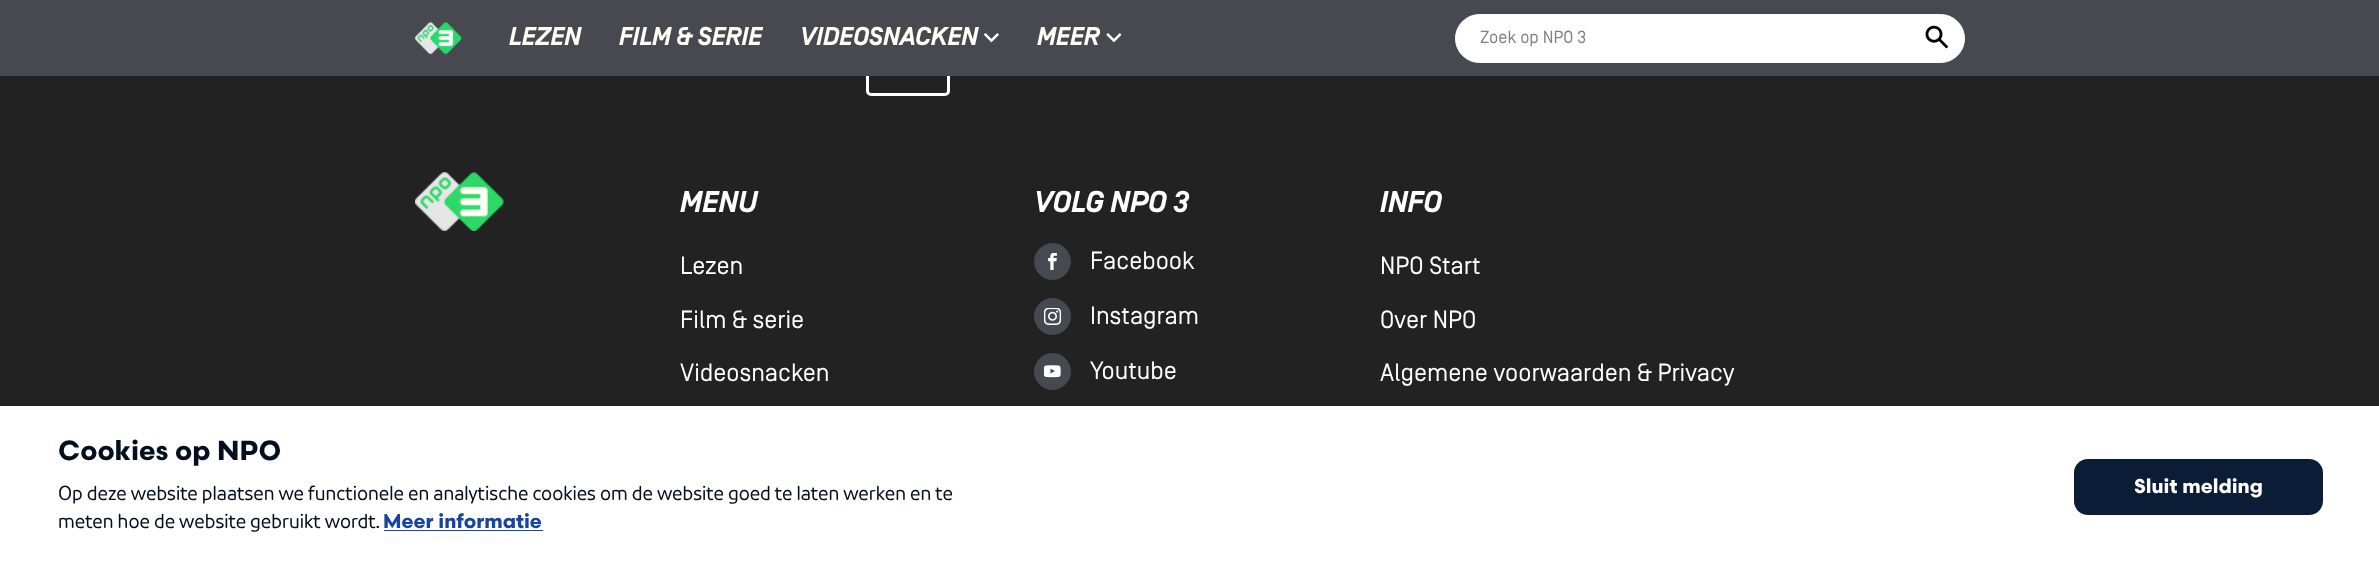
<!DOCTYPE html>
<meta charset="utf-8">
<style>body { margin: 0 } canvas { display: block }</style>
<canvas id="canvas" width="2379" height="566"></canvas>
<img id="img1" src="images/1.png" hidden>
<img id="img2" src="images/2.png" hidden>
<img id="img3" src="images/3.png" hidden>
<img id="img4" src="images/4.png" hidden>
<img id="img5" src="images/5.png" hidden>
<img id="img6" src="images/6.png" hidden>
<img id="img7" src="images/7.png" hidden>
<img id="img8" src="images/8.png" hidden>
<script>
window.onload = function () {
    const canvas = document.getElementById('canvas');
    const context = canvas.getContext('2d');
    context.miterLimit = 4;
    context.fontKerning = 'normal';

    context.fillStyle = 'rgb(34, 34, 34)';
    context.fillRect(0, 0, 2379, 566);
    context.beginPath();
    context.roundRect(867.5, 62.5, 81, 32, 3.5);
    context.strokeStyle = 'rgb(255, 255, 255)';
    context.lineWidth = 3;
    context.stroke();
    context.fillStyle = 'rgb(72, 73, 80)';
    context.fillRect(0, 0, 2379, 76);
    context.drawImage(document.getElementById('img1'), 415, 22, 47, 33);
    context.drawImage(document.getElementById('img2'), 984, 33, 15, 10);
    context.drawImage(document.getElementById('img3'), 1106, 33, 15, 10);
    context.fillStyle = 'rgb(255, 255, 255)';
    context.beginPath();
    context.roundRect(1455.5, 14.5, 509, 48, 24);
    context.fill();
    context.lineWidth = 1;
    context.stroke();
    context.drawImage(document.getElementById('img4'), 1925, 25, 23, 24);
    context.drawImage(document.getElementById('img5'), 415, 172, 89, 59);
    context.fillStyle = 'rgb(72, 73, 80)';
    context.beginPath();
    context.arc(1052.5, 261.5, 18, 0, 2 * Math.PI);
    context.fill();
    context.strokeStyle = 'rgb(72, 73, 80)';
    context.stroke();
    context.drawImage(document.getElementById('img6'), 1048, 253, 9, 17);
    context.beginPath();
    context.arc(1052.5, 316.5, 18, 0, 2 * Math.PI);
    context.fill();
    context.stroke();
    context.drawImage(document.getElementById('img7'), 1044, 308, 17, 17);
    context.beginPath();
    context.arc(1052.5, 371.5, 18, 0, 2 * Math.PI);
    context.fill();
    context.stroke();
    context.drawImage(document.getElementById('img8'), 1044, 365, 17, 13);
    context.fillStyle = 'rgb(255, 255, 255)';
    context.fillRect(0, 406, 2379, 160);
    context.fillStyle = 'rgb(24, 67, 161)';
    context.fillRect(384, 530, 159, 1);
    context.fillStyle = 'rgb(11, 28, 54)';
    context.beginPath();
    context.roundRect(2074, 459, 249, 56, 14);
    context.fill();
    context.font = 'italic bold 25.75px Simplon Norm';
    context.fillStyle = 'rgb(255, 253, 244)';
    context.fillText('LEZEN', 509, 45);
    context.fillText('FILM & SERIE', 619, 45);
    context.fillText('VIDEOSNACKEN', 800, 45);
    context.fillText('MEER', 1037, 45);
    context.font = '17.5px Simplon Norm';
    context.fillStyle = 'rgb(128, 128, 128)';
    context.fillText('Zoek op NPO 3', 1480, 43);
    context.font = 'italic bold 30px Simplon Norm';
    context.fillStyle = 'rgb(255, 255, 255)';
    context.fillText('MENU', 680, 212);
    context.font = '25px Simplon Norm';
    context.fillText('Lezen', 680, 274);
    context.fillText('Film & serie', 680, 328);
    context.fillText('Videosnacken', 680, 381);
    context.font = 'italic bold 30px Simplon Norm';
    context.fillText('VOLG NPO 3', 1034, 212);
    context.font = '25px Simplon Norm';
    context.fillText('Facebook', 1090, 269);
    context.fillText('Instagram', 1090, 324);
    context.fillText('Youtube', 1090, 379);
    context.font = 'italic bold 30px Simplon Norm';
    context.fillText('INFO', 1380, 212);
    context.font = '25px Simplon Norm';
    context.fillText('NPO Start', 1380, 274);
    context.fillText('Over NPO', 1380, 328);
    context.fillText('Algemene voorwaarden & Privacy', 1380, 381);
    context.font = 'bold 27.5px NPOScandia';
    context.fillStyle = 'rgb(3, 14, 30)';
    context.fillText('Cookies op NPO', 58, 460);
    context.font = '20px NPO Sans';
    context.fillText('Op deze website plaatsen we functionele en analytische cookies om de website goed te laten werken en te', 58, 500);
    context.fillText('meten hoe de website gebruikt wordt.', 58, 528);
    context.font = 'bold 20px NPOScandia';
    context.fillStyle = 'rgb(24, 67, 161)';
    context.fillText('Meer informatie', 383, 528);
    context.fillStyle = 'rgb(255, 255, 255)';
    context.fillText('Sluit melding', 2134, 493);
};
</script>
